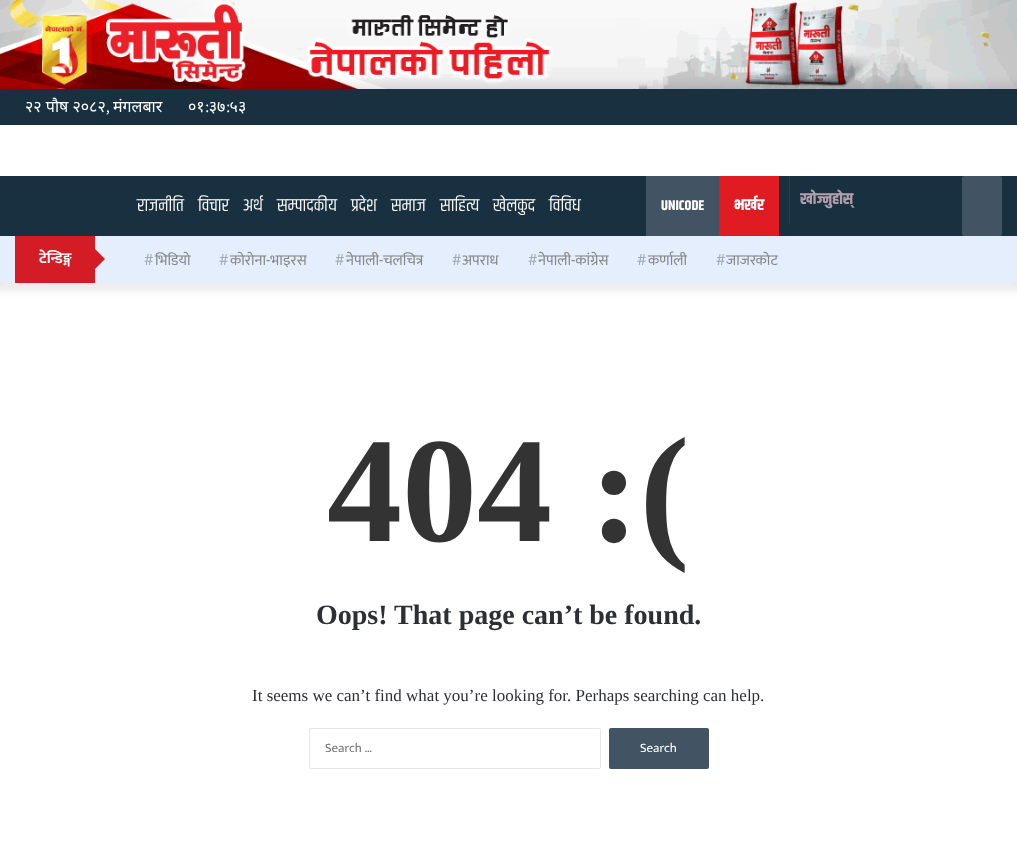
<!DOCTYPE html>
<meta charset="utf-8">
<style>body { margin: 0 } canvas { display: block }</style>
<canvas id="canvas" width="1017" height="844"></canvas>
<img id="img1" src="images/1.png" hidden>
<script>
window.onload = function () {
    const canvas = document.getElementById('canvas');
    const context = canvas.getContext('2d');
    context.miterLimit = 4;
    context.fontKerning = 'normal';

    context.fillStyle = 'rgb(255, 255, 255)';
    context.fillRect(0, 0, 1017, 844);
    context.drawImage(document.getElementById('img1'), 0, 0, 1017, 89);
    context.save();
    context.beginPath();
    context.moveTo(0, 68);
    context.lineTo(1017, 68);
    context.lineTo(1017, 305);
    context.lineTo(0, 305);
    context.closePath();
    context.moveTo(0, 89);
    context.lineTo(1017, 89);
    context.lineTo(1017, 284);
    context.lineTo(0, 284);
    context.closePath();
    context.clip('evenodd');
    context.fillStyle = 'rgba(0, 0, 0, 0.1)';
    context.filter = 'blur(5px)';
    context.beginPath();
    context.rect(-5, 84, 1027, 205);
    context.fill();
    context.filter = 'none';
    context.restore();
    context.fillStyle = 'rgb(212, 212, 212)';
    context.fillRect(0, 283, 1017, 1);
    context.fillStyle = 'rgb(25, 48, 64)';
    context.fillRect(0, 89, 1017, 35);
    context.fillStyle = 'rgb(23, 43, 58)';
    context.fillRect(0, 124, 1017, 1);
    context.fillStyle = 'rgb(238, 238, 238)';
    context.filter = 'blur(2.5px)';
    context.beginPath();
    context.rect(0, 241, 1017, 47);
    context.fill();
    context.filter = 'none';
    context.fillStyle = 'rgb(25, 48, 64)';
    context.fillRect(0, 176, 1017, 60);
    context.fillStyle = 'rgb(66, 83, 99)';
    context.fillRect(646, 176, 73, 60);
    context.fillStyle = 'rgb(225, 27, 34)';
    context.fillRect(719, 176, 60, 60);
    context.fillStyle = 'rgb(41, 62, 77)';
    context.fillRect(789, 176, 1, 48);
    context.fillStyle = 'rgb(66, 83, 99)';
    context.beginPath();
    context.roundRect(962, 176, 40, 60, 2);
    context.fill();
    context.fillStyle = 'rgb(228, 238, 253)';
    context.fillRect(0, 236, 1017, 47);
    context.fillStyle = 'rgb(211, 28, 37)';
    context.fillRect(15, 236, 80, 47);
    context.beginPath();
    context.moveTo(95, 269);
    context.lineTo(95, 249);
    context.lineTo(105, 259);
    context.closePath();
    context.fill();
    context.beginPath();
    context.roundRect(309.5, 728.5, 291, 40, 1.5);
    context.strokeStyle = 'rgb(230, 230, 230)';
    context.stroke();
    context.fillStyle = 'rgb(66, 83, 99)';
    context.beginPath();
    context.roundRect(609, 728, 100, 41, 2);
    context.fill();
    context.font = '16px Noto Sans';
    context.fillStyle = 'rgb(255, 255, 255)';
    context.fillText('२२ पौष २०८२', 25, 112);
    context.font = '16px Liberation Serif';
    context.fillText(',', 106, 112);
    context.font = '16px Noto Sans';
    context.fillText('मंगलबार', 113, 112);
    context.fillText('०१ ३७ ५३', 188, 112);
    context.font = '16px Liberation Serif';
    context.fillText(':', 205, 112);
    context.fillText(':', 226, 112);
    context.font = '18px Khand';
    context.fillText('राजनीति', 137, 211);
    context.fillText('विचार', 198, 211);
    context.fillText('अर्थ', 243, 211);
    context.fillText('सम्पादकीय', 277, 211);
    context.fillText('प्रदेश', 351, 211);
    context.fillText('समाज', 391, 211);
    context.fillText('साहित्य', 440, 211);
    context.fillText('खेलकुद', 493, 211);
    context.fillText('विविध', 549, 211);
    context.font = 'bold 14px Khand';
    context.fillText('UNICODE', 661, 210);
    context.font = 'bold 16px Khand';
    context.fillText('भर्खर', 734, 210);
    context.save();
    context.beginPath();
    context.rect(800, 187, 177, 25);
    context.clip();
    context.fillStyle = 'rgb(179, 159, 172)';
    context.fillText('खोज्नुहोस्', 800, 204);
    context.restore();
    context.font = 'bold 15px Mukta';
    context.fillText('टेन्डिङ्ग', 39, 263);
    context.font = '15px Mukta';
    context.fillStyle = 'rgb(160, 167, 177)';
    context.fillText('#', 144, 265);
    context.fillStyle = 'rgb(134, 134, 134)';
    context.fillText('भिडियो', 155, 265);
    context.fillText('कोरोना-भाइरस', 230, 265);
    context.fillStyle = 'rgb(160, 167, 177)';
    context.fillText('#', 219, 265);
    context.fillStyle = 'rgb(134, 134, 134)';
    context.fillText('नेपाली-चलचित्र', 346, 265);
    context.fillStyle = 'rgb(160, 167, 177)';
    context.fillText('#', 335, 265);
    context.fillText('#', 452, 265);
    context.fillStyle = 'rgb(134, 134, 134)';
    context.fillText('अपराध', 462, 265);
    context.fillText('नेपाली-कांग्रेस', 538, 265);
    context.fillStyle = 'rgb(160, 167, 177)';
    context.fillText('#', 528, 265);
    context.fillText('#', 637, 265);
    context.fillStyle = 'rgb(134, 134, 134)';
    context.fillText('कर्णाली', 648, 265);
    context.fillStyle = 'rgb(160, 167, 177)';
    context.fillText('#', 716, 265);
    context.fillStyle = 'rgb(134, 134, 134)';
    context.fillText('जाजरकोट', 726, 265);
    context.font = 'bold 150px Liberation Serif';
    context.fillStyle = 'rgb(51, 51, 51)';
    context.fillText('404 :(', 327, 541);
    context.font = 'bold 28px Liberation Serif';
    context.fillStyle = 'rgb(44, 47, 52)';
    context.fillText('Oops! That page can’t be found.', 316, 624);
    context.font = '17px Liberation Serif';
    context.fillText('It seems we can’t find what you’re looking for. Perhaps searching can help.', 252, 701);
    context.font = '13px Mukta';
    context.fillStyle = 'rgb(117, 117, 117)';
    context.fillText('Search …', 325, 752);
    context.fillStyle = 'rgb(255, 255, 255)';
    context.fillText('Search', 640, 752);
};
</script>
